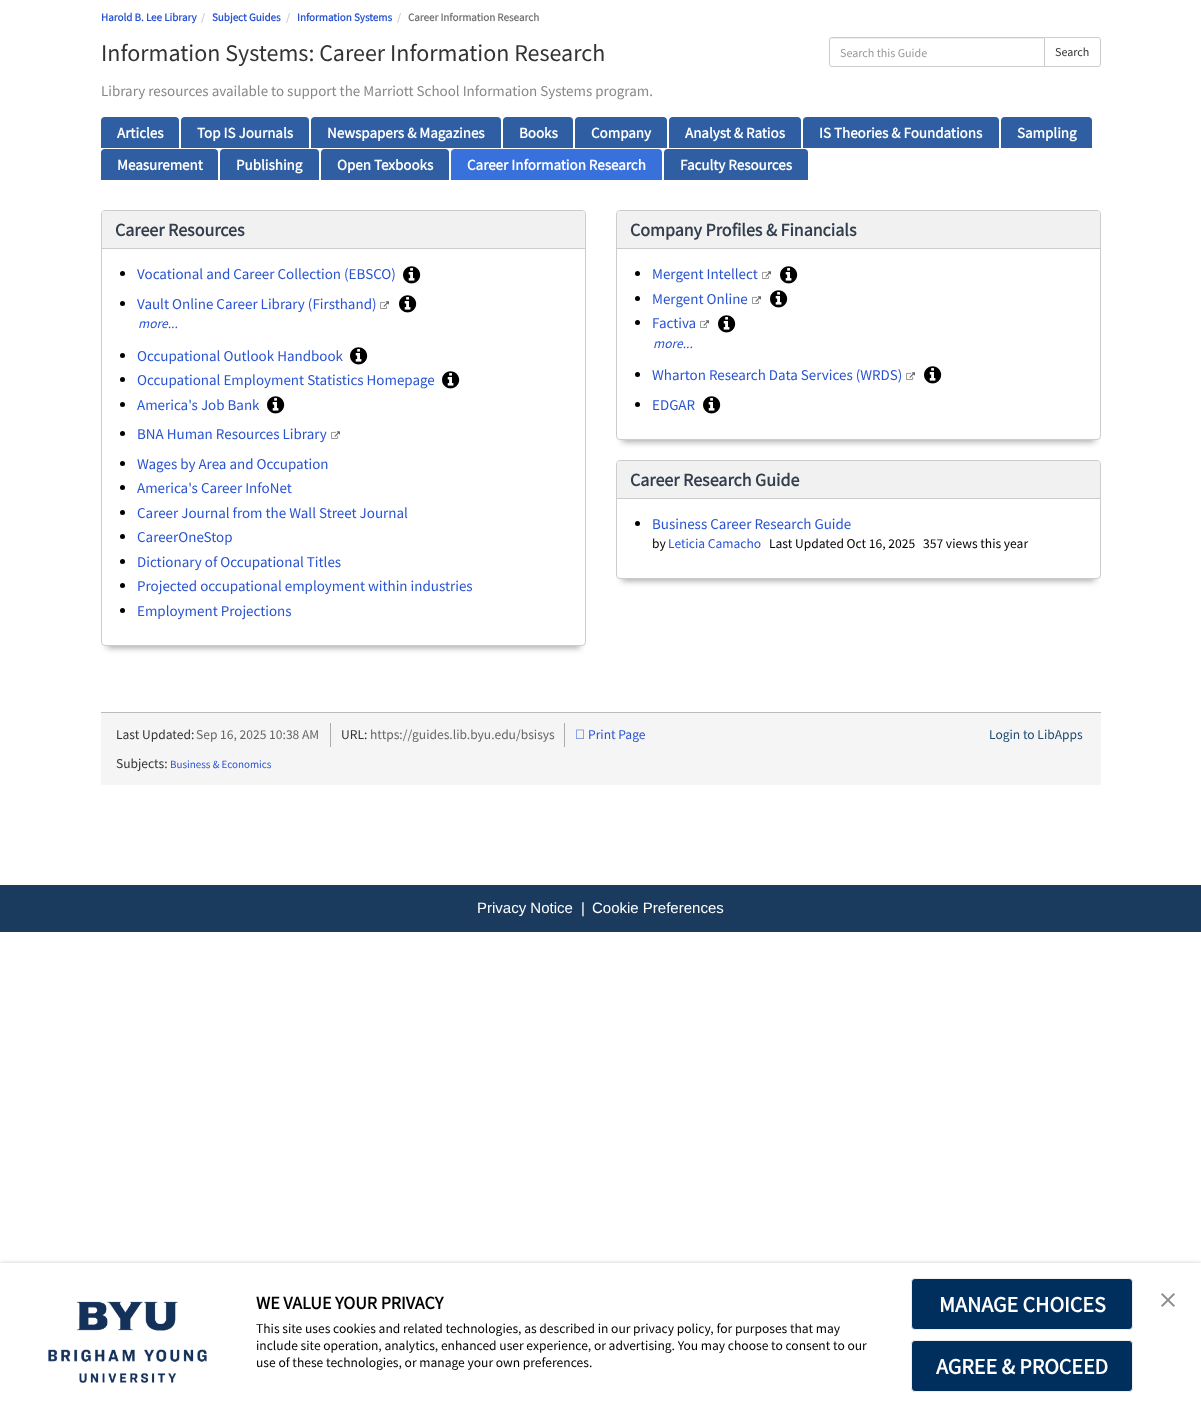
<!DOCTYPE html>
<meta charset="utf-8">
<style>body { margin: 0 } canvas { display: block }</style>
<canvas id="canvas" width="1201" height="1427"></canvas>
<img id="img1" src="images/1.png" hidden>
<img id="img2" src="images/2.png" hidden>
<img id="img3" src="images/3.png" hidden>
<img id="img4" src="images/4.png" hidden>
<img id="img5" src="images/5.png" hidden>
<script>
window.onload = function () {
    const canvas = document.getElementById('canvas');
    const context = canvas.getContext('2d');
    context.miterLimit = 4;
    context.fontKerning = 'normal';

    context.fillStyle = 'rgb(255, 255, 255)';
    context.fillRect(0, 0, 1201, 1427);
    context.fillStyle = 'rgb(236, 236, 236)';
    context.beginPath();
    context.moveTo(832, 39);
    context.lineTo(1044, 39);
    context.lineTo(1044, 38);
    context.lineTo(832, 38);
    context.lineTo(831, 39);
    context.lineTo(830, 41);
    context.bezierCurveTo(830, 40, 831, 39, 832, 39);
    context.closePath();
    context.fill();
    context.beginPath();
    context.roundRect(829.5, 37.5, 215, 29, [2.5, 0, 0, 2.5]);
    context.strokeStyle = 'rgb(204, 204, 204)';
    context.stroke();
    context.fillStyle = 'rgb(255, 255, 255)';
    context.beginPath();
    context.roundRect(1044.5, 37.5, 56, 29, [0, 2.5, 2.5, 0]);
    context.fill();
    context.stroke();
    context.fillStyle = 'rgb(47, 94, 162)';
    context.beginPath();
    context.roundRect(101, 117, 78, 31, [4, 4, 0, 0]);
    context.fill();
    context.beginPath();
    context.roundRect(181, 117, 128, 31, [4, 4, 0, 0]);
    context.fill();
    context.beginPath();
    context.roundRect(311, 117, 190, 31, [4, 4, 0, 0]);
    context.fill();
    context.beginPath();
    context.roundRect(503, 117, 70, 31, [4, 4, 0, 0]);
    context.fill();
    context.beginPath();
    context.roundRect(575, 117, 92, 31, [4, 4, 0, 0]);
    context.fill();
    context.beginPath();
    context.roundRect(669, 117, 132, 31, [4, 4, 0, 0]);
    context.fill();
    context.beginPath();
    context.roundRect(803, 117, 196, 31, [4, 4, 0, 0]);
    context.fill();
    context.beginPath();
    context.roundRect(1001, 117, 91, 31, [4, 4, 0, 0]);
    context.fill();
    context.beginPath();
    context.roundRect(101, 149, 117, 31, [4, 4, 0, 0]);
    context.fill();
    context.beginPath();
    context.roundRect(220, 149, 99, 31, [4, 4, 0, 0]);
    context.fill();
    context.beginPath();
    context.roundRect(321, 149, 128, 31, [4, 4, 0, 0]);
    context.fill();
    context.fillStyle = 'rgb(56, 113, 220)';
    context.beginPath();
    context.roundRect(451, 149, 211, 31, [4, 4, 0, 0]);
    context.fill();
    context.fillStyle = 'rgb(47, 94, 162)';
    context.beginPath();
    context.roundRect(664, 149, 144, 31, [4, 4, 0, 0]);
    context.fill();
    context.fillStyle = 'rgb(170, 170, 170)';
    context.filter = 'blur(3px)';
    context.beginPath();
    context.rect(107, 224, 473, 424);
    context.fill();
    context.filter = 'none';
    context.fillStyle = 'rgb(255, 255, 255)';
    context.beginPath();
    context.roundRect(101.5, 210.5, 484, 435, 3.5);
    context.fill();
    context.stroke();
    context.fillStyle = 'rgb(241, 241, 241)';
    context.beginPath();
    context.roundRect(102, 211, 483, 38, [3, 3, 0, 0]);
    context.fill();
    context.fillStyle = 'rgb(204, 204, 204)';
    context.fillRect(102, 248, 483, 1);
    context.fillStyle = 'rgb(0, 0, 0)';
    context.beginPath();
    context.arc(122.5, 273.5, 2.5, 0, 2 * Math.PI);
    context.fill();
    context.drawImage(document.getElementById('img1'), 403, 266, 18, 18);
    context.beginPath();
    context.arc(122.5, 303.5, 2.5, 0, 2 * Math.PI);
    context.fill();
    context.drawImage(document.getElementById('img2'), 380, 301, 9, 8);
    context.drawImage(document.getElementById('img1'), 399, 295, 18, 18);
    context.beginPath();
    context.arc(122.5, 355.5, 2.5, 0, 2 * Math.PI);
    context.fill();
    context.drawImage(document.getElementById('img1'), 350, 347, 18, 18);
    context.beginPath();
    context.arc(122.5, 379.5, 2.5, 0, 2 * Math.PI);
    context.fill();
    context.drawImage(document.getElementById('img1'), 442, 371, 18, 18);
    context.beginPath();
    context.arc(122.5, 404.5, 2.5, 0, 2 * Math.PI);
    context.fill();
    context.drawImage(document.getElementById('img1'), 267, 396, 18, 18);
    context.beginPath();
    context.arc(122.5, 433.5, 2.5, 0, 2 * Math.PI);
    context.fill();
    context.drawImage(document.getElementById('img2'), 331, 431, 9, 8);
    context.beginPath();
    context.arc(122.5, 463.5, 2.5, 0, 2 * Math.PI);
    context.fill();
    context.beginPath();
    context.arc(122.5, 487.5, 2.5, 0, 2 * Math.PI);
    context.fill();
    context.beginPath();
    context.arc(122.5, 512.5, 2.5, 0, 2 * Math.PI);
    context.fill();
    context.beginPath();
    context.arc(122.5, 536.5, 2.5, 0, 2 * Math.PI);
    context.fill();
    context.beginPath();
    context.arc(122.5, 561.5, 2.5, 0, 2 * Math.PI);
    context.fill();
    context.beginPath();
    context.arc(122.5, 585.5, 2.5, 0, 2 * Math.PI);
    context.fill();
    context.beginPath();
    context.arc(122.5, 610.5, 2.5, 0, 2 * Math.PI);
    context.fill();
    context.fillStyle = 'rgb(170, 170, 170)';
    context.filter = 'blur(3px)';
    context.beginPath();
    context.rect(622, 224, 473, 218);
    context.fill();
    context.filter = 'none';
    context.fillStyle = 'rgb(255, 255, 255)';
    context.beginPath();
    context.roundRect(616.5, 210.5, 484, 229, 3.5);
    context.fill();
    context.stroke();
    context.fillStyle = 'rgb(241, 241, 241)';
    context.beginPath();
    context.roundRect(617, 211, 483, 38, [3, 3, 0, 0]);
    context.fill();
    context.fillStyle = 'rgb(204, 204, 204)';
    context.fillRect(617, 248, 483, 1);
    context.fillStyle = 'rgb(0, 0, 0)';
    context.beginPath();
    context.arc(637.5, 273.5, 2.5, 0, 2 * Math.PI);
    context.fill();
    context.drawImage(document.getElementById('img2'), 762, 271, 9, 8);
    context.drawImage(document.getElementById('img1'), 780, 266, 18, 18);
    context.beginPath();
    context.arc(637.5, 298.5, 2.5, 0, 2 * Math.PI);
    context.fill();
    context.drawImage(document.getElementById('img2'), 752, 296, 9, 8);
    context.drawImage(document.getElementById('img1'), 770, 290, 18, 18);
    context.beginPath();
    context.arc(637.5, 322.5, 2.5, 0, 2 * Math.PI);
    context.fill();
    context.drawImage(document.getElementById('img2'), 700, 320, 9, 8);
    context.drawImage(document.getElementById('img1'), 718, 315, 18, 18);
    context.beginPath();
    context.arc(637.5, 374.5, 2.5, 0, 2 * Math.PI);
    context.fill();
    context.drawImage(document.getElementById('img2'), 906, 372, 9, 8);
    context.drawImage(document.getElementById('img1'), 924, 366, 18, 18);
    context.beginPath();
    context.arc(637.5, 404.5, 2.5, 0, 2 * Math.PI);
    context.fill();
    context.drawImage(document.getElementById('img1'), 703, 396, 18, 18);
    context.fillStyle = 'rgb(170, 170, 170)';
    context.filter = 'blur(3px)';
    context.beginPath();
    context.rect(622, 474, 473, 107);
    context.fill();
    context.filter = 'none';
    context.fillStyle = 'rgb(255, 255, 255)';
    context.beginPath();
    context.roundRect(616.5, 460.5, 484, 118, 3.5);
    context.fill();
    context.stroke();
    context.fillStyle = 'rgb(241, 241, 241)';
    context.beginPath();
    context.roundRect(617, 461, 483, 38, [3, 3, 0, 0]);
    context.fill();
    context.fillStyle = 'rgb(204, 204, 204)';
    context.fillRect(617, 498, 483, 1);
    context.fillStyle = 'rgb(0, 0, 0)';
    context.beginPath();
    context.arc(637.5, 523.5, 2.5, 0, 2 * Math.PI);
    context.fill();
    context.fillStyle = 'rgb(245, 245, 245)';
    context.fillRect(101, 713, 1000, 72);
    context.fillStyle = 'rgb(187, 187, 187)';
    context.fillRect(101, 712, 1000, 1);
    context.fillStyle = 'rgb(172, 172, 172)';
    context.fillRect(330, 723, 1, 24);
    context.fillRect(564, 723, 1, 24);
    context.drawImage(document.getElementById('img3'), 576, 729, 8, 10);
    context.fillStyle = 'rgb(26, 59, 93)';
    context.fillRect(0, 885, 1201, 47);
    context.save();
    context.beginPath();
    context.rect(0, 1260, 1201, 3);
    context.clip();
    context.fillStyle = 'rgba(0, 0, 0, 0.2)';
    context.filter = 'blur(2px)';
    context.beginPath();
    context.rect(0, 1263, 1201, 164);
    context.fill();
    context.filter = 'none';
    context.restore();
    context.drawImage(document.getElementById('img4'), 48, 1301, 159, 82);
    context.drawImage(document.getElementById('img5'), 1161, 1293, 14, 14);
    context.fillStyle = 'rgb(0, 46, 93)';
    context.beginPath();
    context.roundRect(911.5, 1278.5, 221, 51, 3.5);
    context.fill();
    context.strokeStyle = 'rgb(238, 238, 238)';
    context.stroke();
    context.beginPath();
    context.roundRect(911.5, 1340.5, 221, 51, 3.5);
    context.fill();
    context.stroke();
    context.font = 'bold 11px Source Sans Pro';
    context.fillStyle = 'rgb(41, 84, 209)';
    context.fillText('Harold B. Lee Library', 101, 21);
    context.fillStyle = 'rgb(204, 204, 204)';
    context.fillText('/', 201, 21);
    context.fillStyle = 'rgb(41, 84, 209)';
    context.fillText('Subject Guides', 212, 21);
    context.fillStyle = 'rgb(204, 204, 204)';
    context.fillText('/', 286, 21);
    context.fillStyle = 'rgb(41, 84, 209)';
    context.fillText('Information Systems', 297, 21);
    context.fillStyle = 'rgb(204, 204, 204)';
    context.fillText('/', 397, 21);
    context.fillStyle = 'rgb(118, 118, 118)';
    context.fillText('Career Information Research', 408, 21);
    context.font = '24px Source Sans Pro';
    context.fillStyle = 'rgb(51, 51, 51)';
    context.fillText('Information Systems: Career Information Research', 101, 61);
    context.font = '15px Source Sans Pro';
    context.fillStyle = 'rgb(136, 136, 136)';
    context.fillText('Library resources available to support the Marriott School Information Systems program.', 101, 96);
    context.font = '12px Source Sans Pro';
    context.fillStyle = 'rgb(153, 153, 153)';
    context.fillText('Search this Guide', 840, 57);
    context.fillStyle = 'rgb(51, 51, 51)';
    context.fillText('Search', 1055, 56);
    context.font = 'bold 15px Source Sans Pro';
    context.fillStyle = 'rgb(255, 255, 255)';
    context.fillText('Articles', 117, 138);
    context.fillText('Top IS Journals', 197, 138);
    context.fillText('Newspapers & Magazines', 327, 138);
    context.fillText('Books', 519, 138);
    context.fillText('Company', 591, 138);
    context.fillText('Analyst & Ratios', 685, 138);
    context.fillText('IS Theories & Foundations', 819, 138);
    context.fillText('Sampling', 1017, 138);
    context.fillText('Measurement', 117, 170);
    context.fillText('Publishing', 236, 170);
    context.fillText('Open Texbooks', 337, 170);
    context.fillText('Career Information Research', 467, 170);
    context.fillText('Faculty Resources', 680, 170);
    context.font = 'bold 18px Source Sans Pro';
    context.fillStyle = 'rgb(51, 62, 77)';
    context.fillText('Career Resources', 115, 236);
    context.font = '15px Source Sans Pro';
    context.fillStyle = 'rgb(41, 84, 209)';
    context.fillText('Vocational and Career Collection (EBSCO)', 137, 279);
    context.fillText('Vault Online Career Library (Firsthand)', 137, 309);
    context.font = 'italic 13.5px Source Sans Pro';
    context.fillText('more...', 138, 328);
    context.font = '15px Source Sans Pro';
    context.fillText('Occupational Outlook Handbook', 137, 361);
    context.fillText('Occupational Employment Statistics Homepage', 137, 385);
    context.fillText('America\'s Job Bank', 137, 410);
    context.fillText('BNA Human Resources Library', 137, 439);
    context.fillText('Wages by Area and Occupation', 137, 469);
    context.fillText('America\'s Career InfoNet', 137, 493);
    context.fillText('Career Journal from the Wall Street Journal', 137, 518);
    context.fillText('CareerOneStop', 137, 542);
    context.fillText('Dictionary of Occupational Titles', 137, 567);
    context.fillText('Projected occupational employment within industries', 137, 591);
    context.fillText('Employment Projections', 137, 616);
    context.font = 'bold 18px Source Sans Pro';
    context.fillStyle = 'rgb(51, 62, 77)';
    context.fillText('Company Profiles & Financials', 630, 236);
    context.font = '15px Source Sans Pro';
    context.fillStyle = 'rgb(41, 84, 209)';
    context.fillText('Mergent Intellect', 652, 279);
    context.fillText('Mergent Online', 652, 304);
    context.fillText('Factiva', 652, 328);
    context.font = 'italic 13.5px Source Sans Pro';
    context.fillText('more...', 653, 348);
    context.font = '15px Source Sans Pro';
    context.fillText('Wharton Research Data Services (WRDS)', 652, 380);
    context.fillText('EDGAR', 652, 410);
    context.font = 'bold 18px Source Sans Pro';
    context.fillStyle = 'rgb(51, 62, 77)';
    context.fillText('Career Research Guide', 630, 486);
    context.font = '15px Source Sans Pro';
    context.fillStyle = 'rgb(41, 84, 209)';
    context.fillText('Business Career Research Guide', 652, 529);
    context.font = '13.5px Source Sans Pro';
    context.fillStyle = 'rgb(0, 0, 0)';
    context.fillText('by', 652, 548);
    context.fillStyle = 'rgb(41, 84, 209)';
    context.fillText('Leticia Camacho', 668, 548);
    context.fillStyle = 'rgb(0, 0, 0)';
    context.fillText('Last Updated Oct 16, 2025', 769, 548);
    context.fillText('357 views this year', 923, 548);
    context.fillStyle = 'rgb(51, 51, 51)';
    context.fillText('Last Updated:', 116, 739);
    context.fillStyle = 'rgb(102, 102, 102)';
    context.fillText('Sep 16, 2025 10:38 AM', 196, 739);
    context.fillStyle = 'rgb(51, 51, 51)';
    context.fillText('URL:', 341, 739);
    context.fillStyle = 'rgb(102, 102, 102)';
    context.fillText('https://guides.lib.byu.edu/bsisys', 370, 739);
    context.fillStyle = 'rgb(41, 84, 209)';
    context.fillText('Print Page', 588, 739);
    context.fillStyle = 'rgb(31, 73, 110)';
    context.fillText('Login to LibApps', 989, 739);
    context.fillStyle = 'rgb(51, 51, 51)';
    context.fillText('Subjects:', 116, 768);
    context.font = '11px Source Sans Pro';
    context.fillStyle = 'rgb(41, 84, 209)';
    context.fillText('Business & Economics', 170, 768);
    context.font = '15px Liberation Sans';
    context.fillStyle = 'rgb(255, 255, 255)';
    context.fillText('Privacy Notice', 477, 913);
    context.fillText('|', 581, 913);
    context.fillText('Cookie Preferences', 592, 913);
    context.font = 'bold 18px Source Sans Pro';
    context.fillStyle = 'rgb(0, 0, 0)';
    context.fillText('WE VALUE YOUR PRIVACY', 256, 1309);
    context.font = '13.5px Source Sans Pro';
    context.fillText('This site uses cookies and related technologies, as described in our privacy policy, for purposes that may', 256, 1333);
    context.fillText('include site operation, analytics, enhanced user experience, or advertising. You may choose to consent to our', 256, 1350);
    context.fillText('use of these technologies, or manage your own preferences.', 256, 1367);
    context.font = 'bold 22px Source Sans Pro';
    context.fillStyle = 'rgb(255, 255, 255)';
    context.fillText('MANAGE CHOICES', 939, 1312);
    context.fillText('AGREE & PROCEED', 936, 1374);
};
</script>
